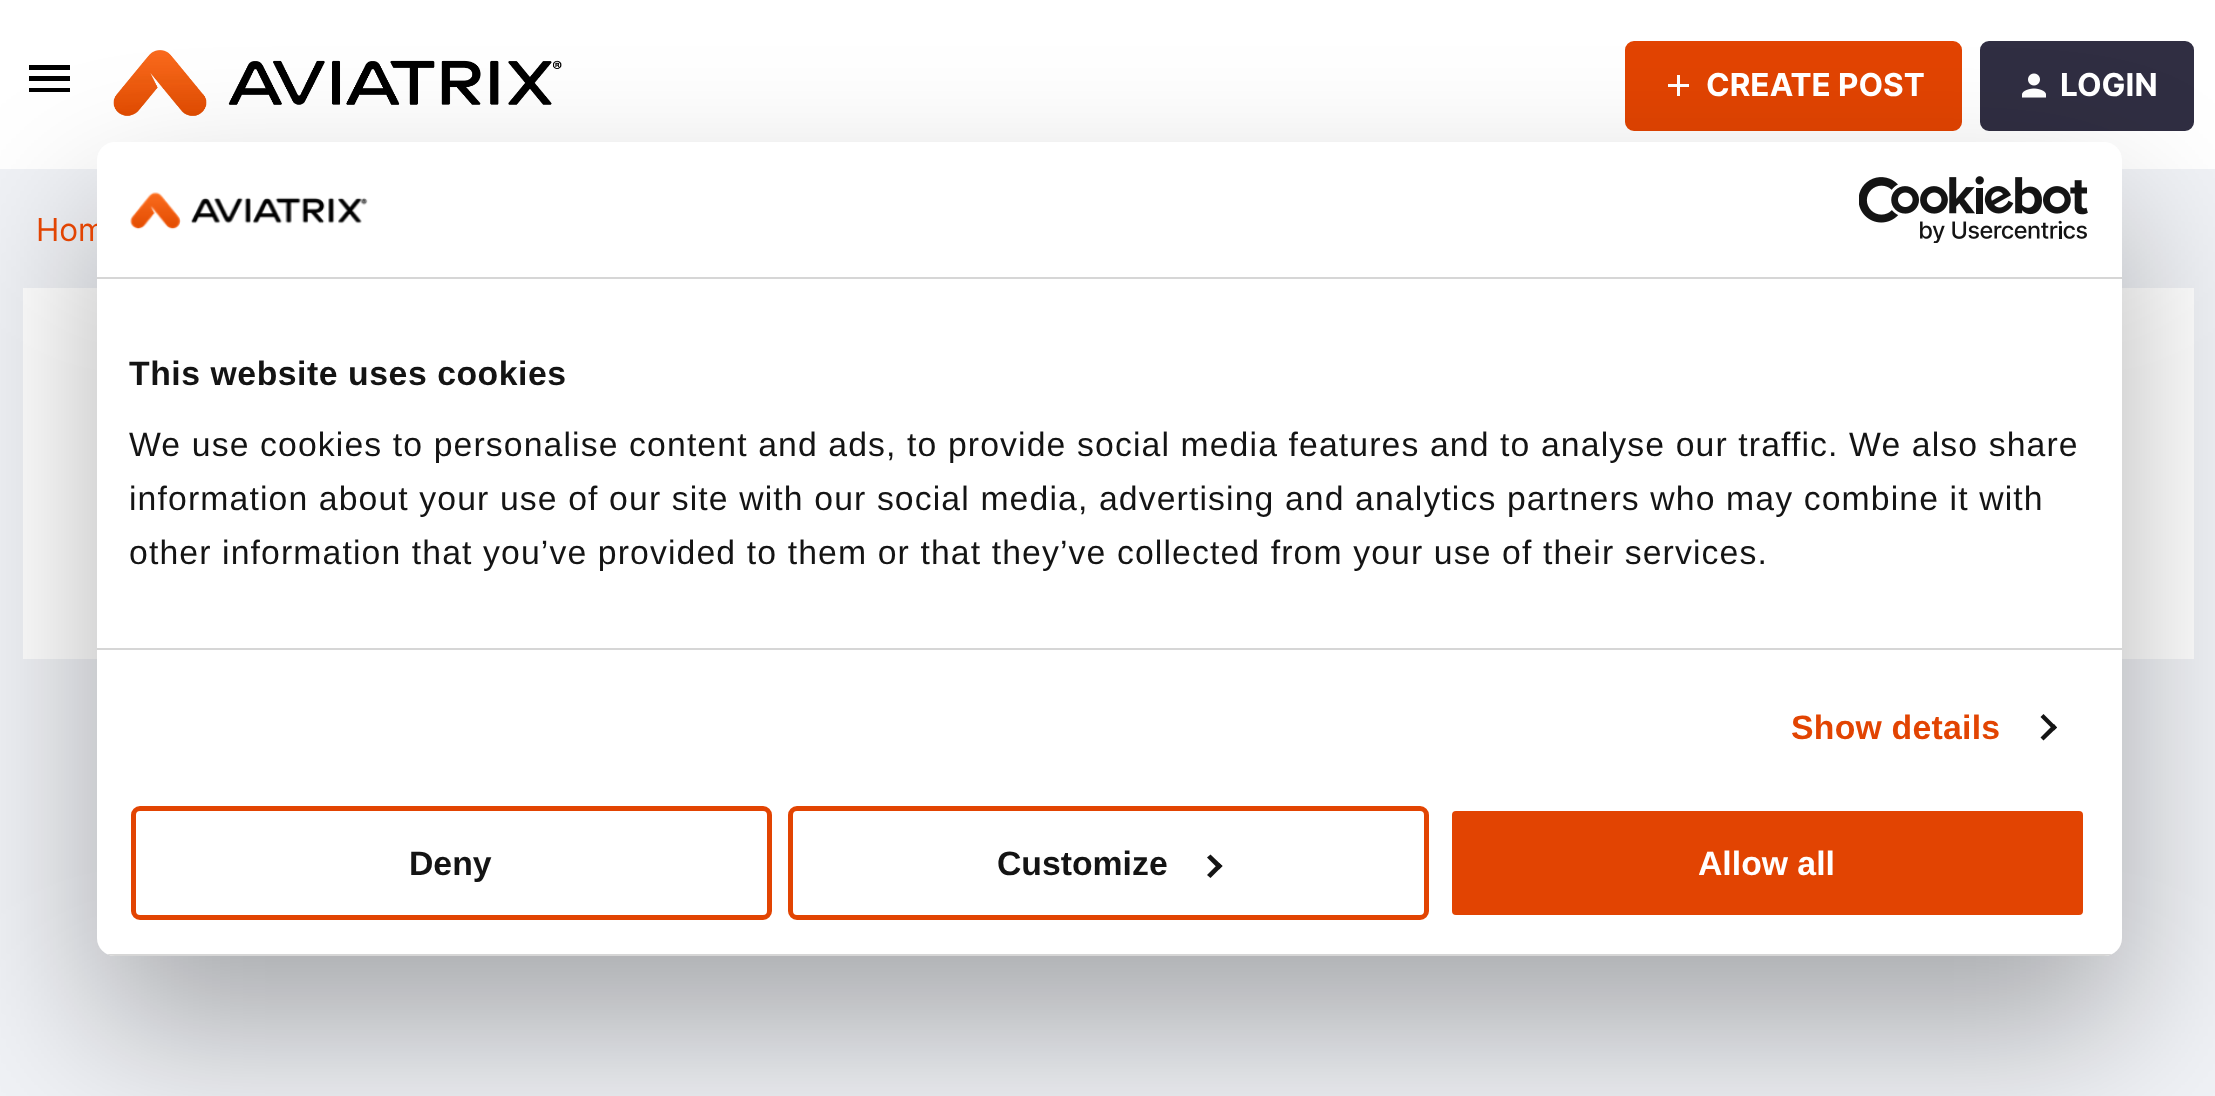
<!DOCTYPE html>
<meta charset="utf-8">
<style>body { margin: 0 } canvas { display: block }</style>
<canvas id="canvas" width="2215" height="1096"></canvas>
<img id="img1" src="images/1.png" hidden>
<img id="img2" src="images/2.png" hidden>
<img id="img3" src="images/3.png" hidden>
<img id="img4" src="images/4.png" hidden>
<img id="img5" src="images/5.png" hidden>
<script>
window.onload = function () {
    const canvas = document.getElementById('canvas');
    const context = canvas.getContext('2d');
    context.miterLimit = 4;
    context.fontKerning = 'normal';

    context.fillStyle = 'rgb(240, 242, 246)';
    context.fillRect(0, 0, 2215, 1096);
    context.fillStyle = 'rgb(255, 255, 255)';
    context.fillRect(0, 0, 2215, 169);
    context.fillStyle = 'rgb(0, 0, 0)';
    context.beginPath();
    context.moveTo(29, 92);
    context.lineTo(70, 92);
    context.lineTo(70, 88);
    context.lineTo(29, 88);
    context.closePath();
    context.moveTo(29, 81);
    context.lineTo(70, 81);
    context.lineTo(70, 76);
    context.lineTo(29, 76);
    context.closePath();
    context.moveTo(29, 65);
    context.lineTo(29, 70);
    context.lineTo(70, 70);
    context.lineTo(70, 65);
    context.closePath();
    context.fill();
    context.drawImage(document.getElementById('img1'), 113, 50, 449, 66);
    context.fillStyle = 'rgb(226, 68, 2)';
    context.beginPath();
    context.roundRect(1626, 42, 335, 88, 8);
    context.fill();
    context.strokeStyle = 'rgb(226, 68, 2)';
    context.lineWidth = 2;
    context.stroke();
    context.drawImage(document.getElementById('img2'), 1668, 75, 21, 21);
    context.fillStyle = 'rgb(48, 46, 66)';
    context.beginPath();
    context.roundRect(1981, 42, 212, 88, 8);
    context.fill();
    context.strokeStyle = 'rgb(48, 46, 66)';
    context.stroke();
    context.drawImage(document.getElementById('img3'), 2022, 73, 24, 25);
    context.fillStyle = 'rgb(255, 255, 255)';
    context.fillRect(23, 288, 2171, 371);
    context.fillStyle = 'rgba(0, 0, 0, 0.3)';
    context.filter = 'blur(76.5px)';
    context.beginPath();
    context.roundRect(97, 214, 2025, 814, 18);
    context.fill();
    context.filter = 'none';
    context.font = 'bold 31.5px Inter';
    context.fillStyle = 'rgb(255, 255, 255)';
    context.fillText('CREATE POST', 1706, 96);
    context.fillText('LOGIN', 2060, 96);
    context.font = '31.5px Inter';
    context.fillStyle = 'rgb(226, 68, 2)';
    context.fillText('Hom', 36, 241);
    context.fillStyle = 'rgb(255, 255, 255)';
    context.beginPath();
    context.roundRect(97, 142, 2025, 814, 18);
    context.fill();
    context.fillStyle = 'rgb(214, 214, 214)';
    context.fillRect(97, 277, 2025, 2);
    context.drawImage(document.getElementById('img4'), 130, 192, 238, 38);
    context.drawImage(document.getElementById('img5'), 1859, 176, 229, 67);
    context.fillRect(97, 648, 2025, 2);
    context.letterSpacing = '0.55px';
    context.font = 'bold 33.75px Liberation Sans';
    context.fillStyle = 'rgb(20, 20, 20)';
    context.fillText('This website uses cookies', 129, 385);
    context.letterSpacing = '1.12px';
    context.font = '33.75px Liberation Sans';
    context.fillText('We use cookies to personalise content and ads, to provide social media features and to analyse our traffic. We also share', 129, 456);
    context.fillText('information about your use of our site with our social media, advertising and analytics partners who may combine it with', 129, 510);
    context.fillText('other information that you’ve provided to them or that they’ve collected from your use of their services.', 129, 564);
    context.letterSpacing = '0.25px';
    context.font = 'bold 33.75px Liberation Sans';
    context.fillStyle = 'rgb(226, 68, 2)';
    context.fillText('Show details', 1791, 739);
    context.fillStyle = 'rgb(20, 20, 20)';
    context.beginPath();
    context.moveTo(2043.5, 714);
    context.lineTo(2057, 727.5);
    context.lineTo(2054, 730.5);
    context.lineTo(2040.5, 717);
    context.closePath();
    context.fill();
    context.beginPath();
    context.moveTo(2054, 724);
    context.lineTo(2057, 727.5);
    context.lineTo(2043.5, 740.5);
    context.lineTo(2040.5, 737.5);
    context.closePath();
    context.fill();
    context.save();
    context.beginPath();
    context.roundRect(97, 142, 2025, 814, 18);
    context.clip();
    context.fillStyle = 'rgb(214, 214, 214)';
    context.fillRect(107, 954, 2005, 2);
    context.restore();
    context.beginPath();
    context.roundRect(133.5, 808.5, 636, 109, 6.5);
    context.strokeStyle = 'rgb(226, 68, 2)';
    context.lineWidth = 5;
    context.stroke();
    context.letterSpacing = '0px';
    context.fillText('Deny', 409, 875);
    context.beginPath();
    context.roundRect(790.5, 808.5, 636, 109, 6.5);
    context.stroke();
    context.fillText('Customize', 997, 875);
    context.beginPath();
    context.moveTo(1210.5, 854.5);
    context.lineTo(1222.5, 866);
    context.lineTo(1219, 869.5);
    context.lineTo(1207, 857.5);
    context.closePath();
    context.fill();
    context.beginPath();
    context.moveTo(1219, 863);
    context.lineTo(1222.5, 866);
    context.lineTo(1210.5, 878);
    context.lineTo(1207, 875);
    context.closePath();
    context.fill();
    context.fillStyle = 'rgb(226, 68, 2)';
    context.beginPath();
    context.roundRect(1449.5, 808.5, 636, 109, 6.5);
    context.fill();
    context.strokeStyle = 'rgb(255, 255, 255)';
    context.stroke();
    context.fillStyle = 'rgb(255, 255, 255)';
    context.fillText('Allow all', 1698, 875);
};
</script>
